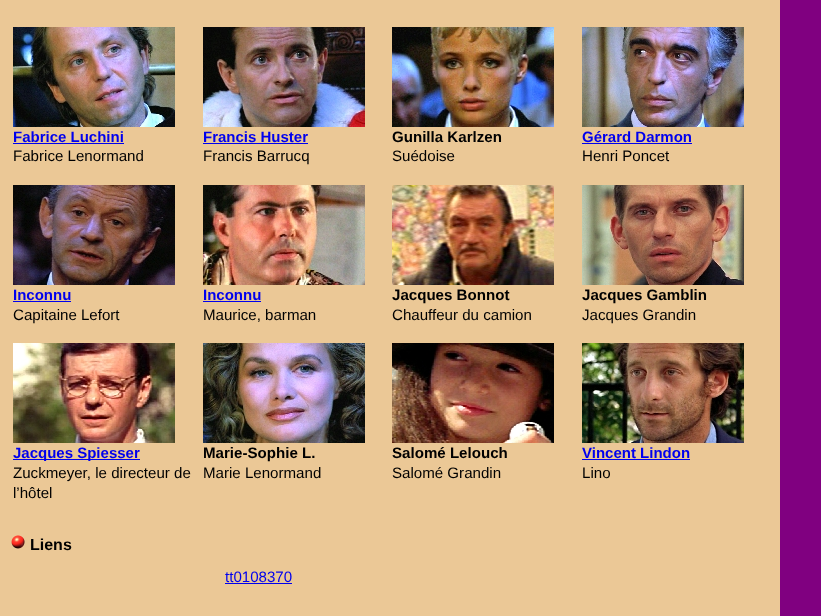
<!DOCTYPE html>
<meta charset="utf-8">
<style>body { margin: 0 } canvas { display: block }</style>
<canvas id="canvas" width="821" height="616"></canvas>
<img id="img1" src="images/1.png" hidden>
<img id="img2" src="images/2.png" hidden>
<img id="img3" src="images/3.png" hidden>
<img id="img4" src="images/4.png" hidden>
<img id="img5" src="images/5.png" hidden>
<img id="img6" src="images/6.png" hidden>
<img id="img7" src="images/7.png" hidden>
<img id="img8" src="images/8.png" hidden>
<img id="img9" src="images/9.png" hidden>
<img id="img10" src="images/10.png" hidden>
<img id="img11" src="images/11.png" hidden>
<img id="img12" src="images/12.png" hidden>
<img id="img13" src="images/13.png" hidden>
<script>
window.onload = function () {
    const canvas = document.getElementById('canvas');
    const context = canvas.getContext('2d');
    context.miterLimit = 4;
    context.fontKerning = 'normal';

    context.fillStyle = 'rgb(128, 0, 128)';
    context.fillRect(0, 0, 821, 616);
    context.fillStyle = 'rgb(235, 200, 150)';
    context.fillRect(0, 0, 780, 616);
    context.drawImage(document.getElementById('img1'), 13, 27, 162, 100);
    context.fillStyle = 'rgb(0, 0, 238)';
    context.fillRect(13, 143, 111, 1);
    context.drawImage(document.getElementById('img2'), 203, 27, 162, 100);
    context.fillRect(203, 143, 105, 1);
    context.drawImage(document.getElementById('img3'), 392, 27, 162, 100);
    context.drawImage(document.getElementById('img4'), 582, 27, 162, 100);
    context.fillRect(582, 143, 110, 1);
    context.drawImage(document.getElementById('img5'), 13, 185, 162, 100);
    context.fillRect(13, 301, 58, 1);
    context.drawImage(document.getElementById('img6'), 203, 185, 162, 100);
    context.fillRect(203, 301, 58, 1);
    context.drawImage(document.getElementById('img7'), 392, 185, 162, 100);
    context.drawImage(document.getElementById('img8'), 582, 185, 162, 100);
    context.drawImage(document.getElementById('img9'), 13, 343, 162, 100);
    context.fillRect(13, 459, 127, 1);
    context.drawImage(document.getElementById('img10'), 203, 343, 162, 100);
    context.drawImage(document.getElementById('img11'), 392, 343, 162, 100);
    context.drawImage(document.getElementById('img12'), 582, 343, 162, 100);
    context.fillRect(582, 459, 108, 1);
    context.drawImage(document.getElementById('img13'), 11, 535, 14, 14);
    context.fillRect(225, 583, 67, 1);
    context.font = 'bold 15px Liberation Sans';
    context.fillText('Fabrice Luchini', 13, 142);
    context.font = '15.1px Liberation Sans';
    context.fillStyle = 'rgb(0, 0, 0)';
    context.fillText('Fabrice Lenormand', 13, 161);
    context.font = 'bold 15px Liberation Sans';
    context.fillStyle = 'rgb(0, 0, 238)';
    context.fillText('Francis Huster', 203, 142);
    context.font = '15.1px Liberation Sans';
    context.fillStyle = 'rgb(0, 0, 0)';
    context.fillText('Francis Barrucq', 203, 161);
    context.font = 'bold 15.1px Liberation Sans';
    context.fillText('Gunilla Karlzen', 392, 142);
    context.font = '15.1px Liberation Sans';
    context.fillText('Suédoise', 392, 161);
    context.font = 'bold 15px Liberation Sans';
    context.fillStyle = 'rgb(0, 0, 238)';
    context.fillText('Gérard Darmon', 582, 142);
    context.font = '15.1px Liberation Sans';
    context.fillStyle = 'rgb(0, 0, 0)';
    context.fillText('Henri Poncet', 582, 161);
    context.font = 'bold 15px Liberation Sans';
    context.fillStyle = 'rgb(0, 0, 238)';
    context.fillText('Inconnu', 13, 300);
    context.font = '15.1px Liberation Sans';
    context.fillStyle = 'rgb(0, 0, 0)';
    context.fillText('Capitaine Lefort', 13, 320);
    context.font = 'bold 15px Liberation Sans';
    context.fillStyle = 'rgb(0, 0, 238)';
    context.fillText('Inconnu', 203, 300);
    context.font = '15.1px Liberation Sans';
    context.fillStyle = 'rgb(0, 0, 0)';
    context.fillText('Maurice, barman', 203, 320);
    context.font = 'bold 15.1px Liberation Sans';
    context.fillText('Jacques Bonnot', 392, 300);
    context.font = '15.1px Liberation Sans';
    context.fillText('Chauffeur du camion', 392, 320);
    context.font = 'bold 15.1px Liberation Sans';
    context.fillText('Jacques Gamblin', 582, 300);
    context.font = '15.1px Liberation Sans';
    context.fillText('Jacques Grandin', 582, 320);
    context.font = 'bold 15px Liberation Sans';
    context.fillStyle = 'rgb(0, 0, 238)';
    context.fillText('Jacques Spiesser', 13, 458);
    context.font = '15.1px Liberation Sans';
    context.fillStyle = 'rgb(0, 0, 0)';
    context.fillText('Zuckmeyer, le directeur de', 13, 478);
    context.fillText('l’hôtel', 13, 498);
    context.font = 'bold 15.1px Liberation Sans';
    context.fillText('Marie-Sophie L.', 203, 458);
    context.font = '15.1px Liberation Sans';
    context.fillText('Marie Lenormand', 203, 478);
    context.font = 'bold 15.1px Liberation Sans';
    context.fillText('Salomé Lelouch', 392, 458);
    context.font = '15.1px Liberation Sans';
    context.fillText('Salomé Grandin', 392, 478);
    context.font = 'bold 15px Liberation Sans';
    context.fillStyle = 'rgb(0, 0, 238)';
    context.fillText('Vincent Lindon', 582, 458);
    context.font = '15.1px Liberation Sans';
    context.fillStyle = 'rgb(0, 0, 0)';
    context.fillText('Lino', 582, 478);
    context.font = 'bold 16px Liberation Sans';
    context.fillText('Liens', 30, 550);
    context.font = '15.1px Liberation Sans';
    context.fillStyle = 'rgb(0, 0, 238)';
    context.fillText('tt0108370', 225, 582);
};
</script>
